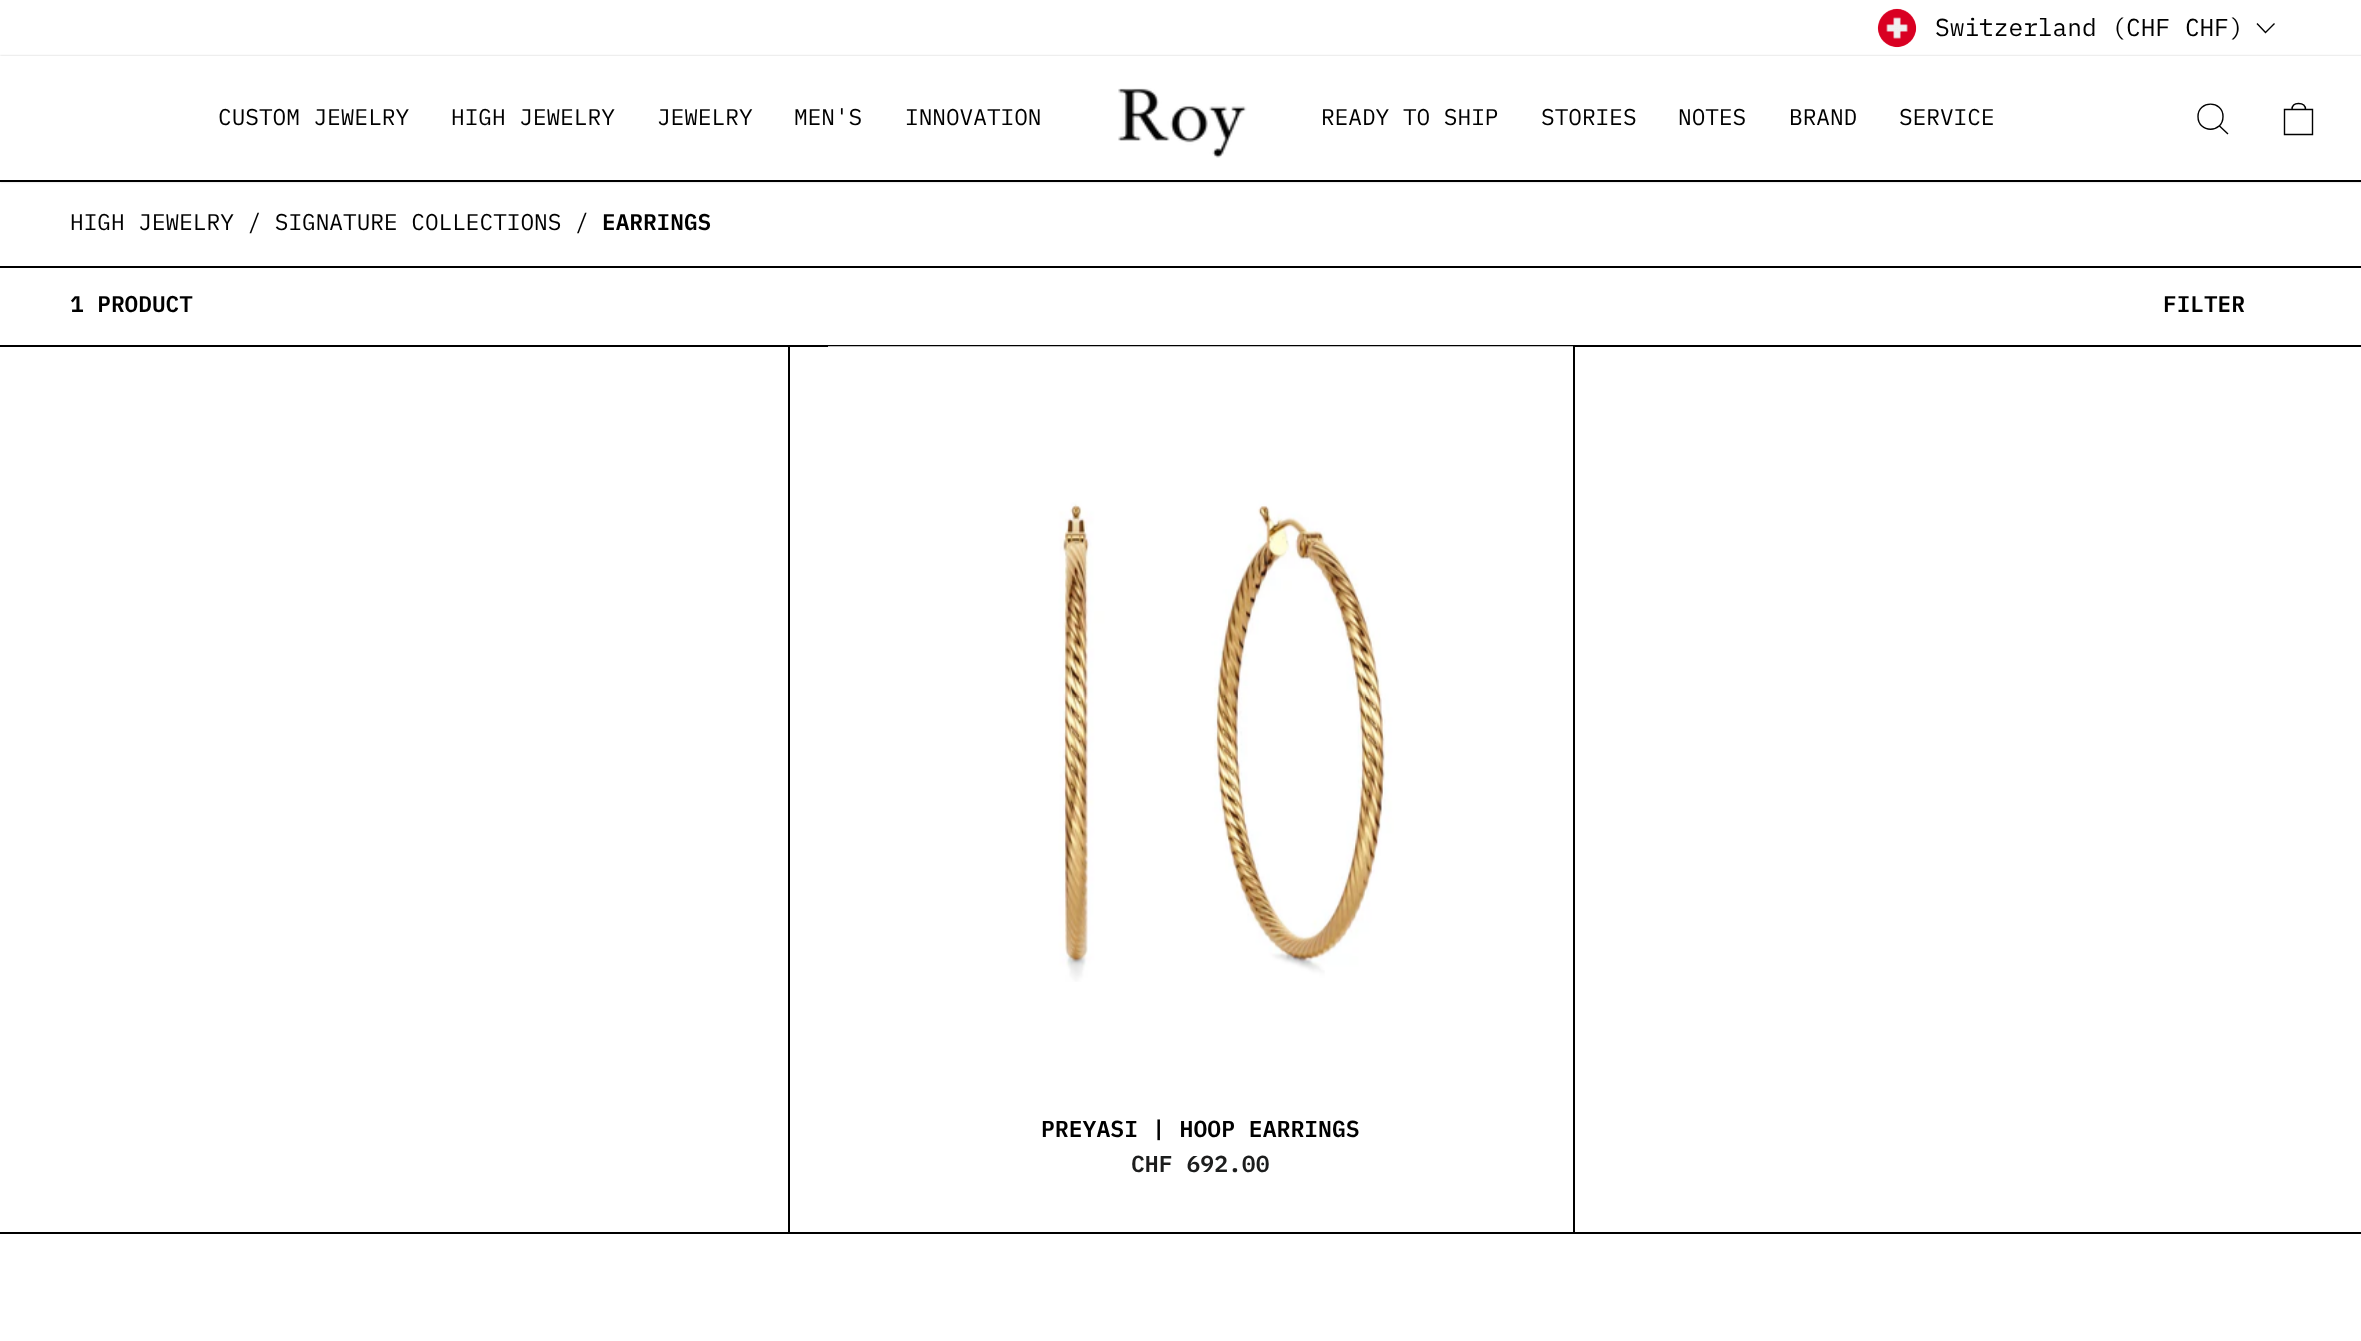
<!DOCTYPE html>
<meta charset="utf-8">
<style>body { margin: 0 } canvas { display: block }</style>
<canvas id="canvas" width="2361" height="1341"></canvas>
<img id="img1" src="images/1.png" hidden>
<img id="img2" src="images/2.png" hidden>
<img id="img3" src="images/3.png" hidden>
<script>
window.onload = function () {
    const canvas = document.getElementById('canvas');
    const context = canvas.getContext('2d');
    context.miterLimit = 4;
    context.fontKerning = 'normal';

    context.fillStyle = 'rgb(255, 255, 255)';
    context.fillRect(0, 0, 2361, 1341);
    context.drawImage(document.getElementById('img1'), 1877, 8, 40, 40);
    context.beginPath();
    context.moveTo(2257, 23.5);
    context.lineTo(2265.5, 32.5);
    context.lineTo(2274.5, 23.5);
    context.strokeStyle = 'rgb(0, 0, 0)';
    context.lineWidth = 1.4;
    context.stroke();
    context.save();
    context.beginPath();
    context.moveTo(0, 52);
    context.lineTo(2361, 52);
    context.lineTo(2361, 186);
    context.lineTo(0, 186);
    context.closePath();
    context.moveTo(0, 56);
    context.lineTo(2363, 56);
    context.lineTo(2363, 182);
    context.lineTo(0, 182);
    context.closePath();
    context.clip('evenodd');
    context.fillStyle = 'rgba(0, 0, 0, 0.2)';
    context.filter = 'blur(1px)';
    context.beginPath();
    context.rect(0, 56, 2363, 126);
    context.fill();
    context.filter = 'none';
    context.restore();
    context.fillStyle = 'rgb(0, 0, 0)';
    context.fillRect(0, 180, 2361, 2);
    context.drawImage(document.getElementById('img2'), 1118, 88, 129, 70);
    context.beginPath();
    context.moveTo(2223, 116.5);
    context.bezierCurveTo(2223, 133.5, 2198, 133.5, 2198, 116.5);
    context.bezierCurveTo(2198, 100, 2223, 100, 2223, 116.5);
    context.closePath();
    context.moveTo(2228, 134);
    context.lineTo(2219.5, 126);
    context.stroke();
    context.beginPath();
    context.moveTo(2284.5, 109.5);
    context.lineTo(2312.5, 109.5);
    context.lineTo(2312.5, 134.5);
    context.lineTo(2284.5, 134.5);
    context.closePath();
    context.moveTo(2292, 109.5);
    context.bezierCurveTo(2292, 104.5, 2295, 103.5, 2298.5, 103.5);
    context.bezierCurveTo(2302.5, 103.5, 2305.5, 104.5, 2305.5, 109.5);
    context.stroke();
    context.fillRect(0, 266, 2361, 2);
    context.fillRect(0, 345, 2361, 2);
    context.fillRect(0, 1232, 2361, 2);
    context.fillRect(1573, 347, 2, 887);
    context.fillRect(788, 347, 2, 887);
    context.drawImage(document.getElementById('img3'), 828, 346, 745, 636);
    context.font = '24.5px IBM Plex Mono';
    context.fillText('Switzerland (CHF CHF)', 1935, 36);
    context.font = '22.75px IBM Plex Mono';
    context.fillText('CUSTOM JEWELRY', 218, 125);
    context.fillText('HIGH JEWELRY', 451, 125);
    context.fillText('JEWELRY', 657, 125);
    context.fillText('MEN\'S', 794, 125);
    context.fillText('INNOVATION', 905, 125);
    context.fillText('READY TO SHIP', 1321, 125);
    context.fillText('STORIES', 1541, 125);
    context.fillText('NOTES', 1678, 125);
    context.fillText('BRAND', 1789, 125);
    context.fillText('SERVICE', 1899, 125);
    context.fillText('HIGH JEWELRY / SIGNATURE COLLECTIONS /', 70, 230);
    context.font = '600 22.75px IBM Plex Mono';
    context.fillText('EARRINGS', 602, 230);
    context.fillText('1 PRODUCT', 70, 312);
    context.fillText('FILTER', 2163, 312);
    context.font = '600 23.1px IBM Plex Mono';
    context.fillText('PREYASI | HOOP EARRINGS', 1041, 1137);
    context.fillStyle = 'rgb(28, 29, 29)';
    context.fillText('CHF 692.00', 1131, 1172);
};
</script>
